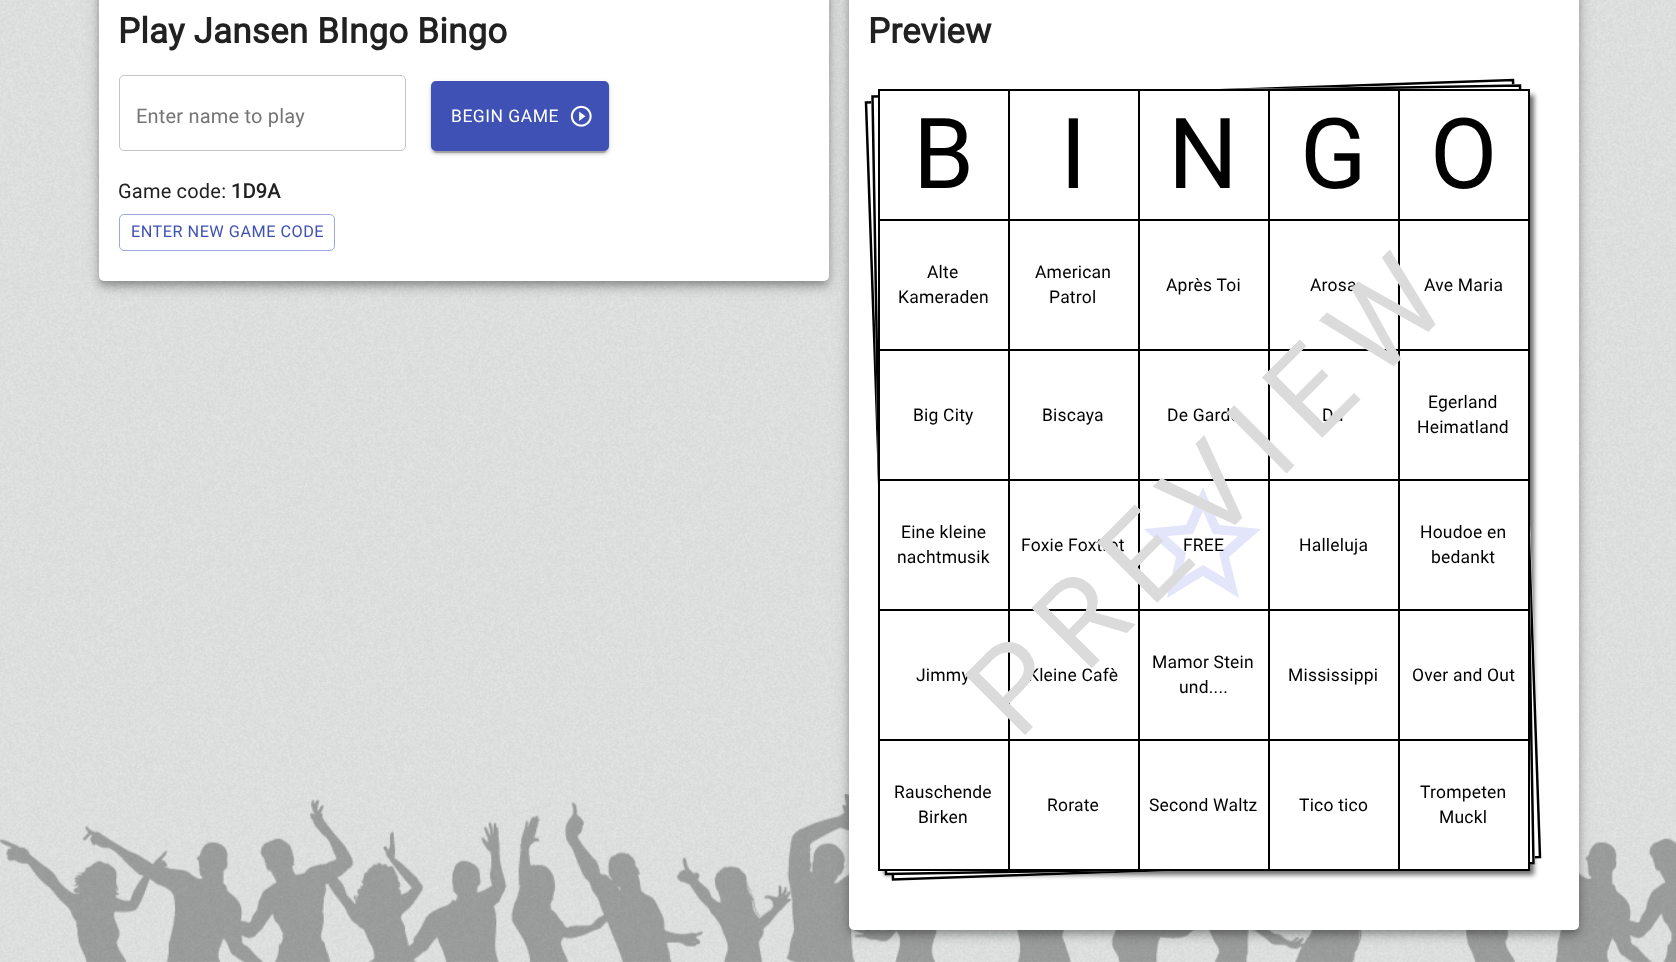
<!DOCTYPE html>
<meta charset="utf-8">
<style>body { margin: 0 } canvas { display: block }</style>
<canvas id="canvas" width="1676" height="962"></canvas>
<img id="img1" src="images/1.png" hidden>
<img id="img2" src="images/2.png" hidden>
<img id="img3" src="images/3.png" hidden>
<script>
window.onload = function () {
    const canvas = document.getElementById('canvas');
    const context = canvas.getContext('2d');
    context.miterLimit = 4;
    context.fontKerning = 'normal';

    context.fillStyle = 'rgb(255, 255, 255)';
    context.fillRect(0, 0, 1676, 962);
    context.drawImage(document.getElementById('img1'), 0, 0, 1676, 962);
    context.fillStyle = 'rgba(0, 0, 0, 0.12)';
    context.filter = 'blur(9px)';
    context.beginPath();
    context.roundRect(99, -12, 730, 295, 5);
    context.fill();
    context.filter = 'none';
    context.fillStyle = 'rgba(0, 0, 0, 0.14)';
    context.filter = 'blur(5px)';
    context.beginPath();
    context.roundRect(99, -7, 730, 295, 5);
    context.fill();
    context.filter = 'none';
    context.fillStyle = 'rgba(0, 0, 0, 0.2)';
    context.filter = 'blur(3px)';
    context.beginPath();
    context.roundRect(100, -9, 728, 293, 4);
    context.fill();
    context.filter = 'none';
    context.fillStyle = 'rgb(255, 255, 255)';
    context.beginPath();
    context.roundRect(99, -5, 730, 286, 5);
    context.fill();
    context.beginPath();
    context.roundRect(119.5, 75.5, 286, 75, 4.5);
    context.strokeStyle = 'rgb(196, 196, 196)';
    context.stroke();
    context.fillStyle = 'rgba(0, 0, 0, 0.12)';
    context.filter = 'blur(3px)';
    context.beginPath();
    context.roundRect(431, 83, 178, 70, 5);
    context.fill();
    context.filter = 'none';
    context.fillStyle = 'rgba(0, 0, 0, 0.14)';
    context.filter = 'blur(1px)';
    context.beginPath();
    context.roundRect(431, 84, 178, 70, 5);
    context.fill();
    context.filter = 'none';
    context.fillStyle = 'rgba(0, 0, 0, 0.2)';
    context.filter = 'blur(0.5px)';
    context.beginPath();
    context.roundRect(434, 88, 172, 65, 2.5);
    context.fill();
    context.filter = 'none';
    context.fillStyle = 'rgb(63, 81, 181)';
    context.beginPath();
    context.roundRect(431, 81, 178, 70, 5);
    context.fill();
    context.drawImage(document.getElementById('img2'), 570, 105, 22, 22);
    context.beginPath();
    context.roundRect(119.5, 214.5, 215, 36, 4.5);
    context.strokeStyle = 'rgb(159, 168, 218)';
    context.stroke();
    context.drawImage(document.getElementById('img3'), 0, 794, 1676, 168);
    context.fillStyle = 'rgba(0, 0, 0, 0.12)';
    context.filter = 'blur(9px)';
    context.beginPath();
    context.roundRect(849, -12, 730, 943, 5);
    context.fill();
    context.filter = 'none';
    context.fillStyle = 'rgba(0, 0, 0, 0.14)';
    context.filter = 'blur(5px)';
    context.beginPath();
    context.roundRect(849, -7, 730, 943, 5);
    context.fill();
    context.filter = 'none';
    context.fillStyle = 'rgba(0, 0, 0, 0.2)';
    context.filter = 'blur(3px)';
    context.beginPath();
    context.roundRect(850, -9, 728, 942, 4);
    context.fill();
    context.filter = 'none';
    context.fillStyle = 'rgb(255, 255, 255)';
    context.beginPath();
    context.roundRect(849, -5, 730, 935, 5);
    context.fill();
    context.fillStyle = 'rgb(108, 108, 108)';
    context.filter = 'blur(2.5px)';
    context.beginPath();
    context.rect(884, 95, 650, 780);
    context.fill();
    context.filter = 'none';
    context.fillStyle = 'rgb(255, 255, 255)';
    context.beginPath();
    context.moveTo(865, 101);
    context.lineTo(1514, 79);
    context.lineTo(1542, 858);
    context.lineTo(892, 881);
    context.closePath();
    context.fill();
    context.beginPath();
    context.moveTo(866, 102.5);
    context.lineTo(1513, 80);
    context.lineTo(1540, 857);
    context.lineTo(893, 879.5);
    context.closePath();
    context.strokeStyle = 'rgb(0, 0, 0)';
    context.lineWidth = 2.5;
    context.stroke();
    context.beginPath();
    context.moveTo(871, 95);
    context.lineTo(1521, 84);
    context.lineTo(1535, 864);
    context.lineTo(885, 875);
    context.closePath();
    context.fill();
    context.beginPath();
    context.moveTo(872.5, 96.5);
    context.lineTo(1520, 85.5);
    context.lineTo(1533.5, 863);
    context.lineTo(886, 874);
    context.closePath();
    context.stroke();
    context.fillRect(880, 91, 648, 778);
    context.lineWidth = 1;
    context.strokeRect(878.5, 89.5, 651, 781);
    context.strokeRect(879.5, 90.5, 129, 129);
    context.strokeRect(1009.5, 90.5, 129, 129);
    context.strokeRect(1139.5, 90.5, 129, 129);
    context.strokeRect(1269.5, 90.5, 129, 129);
    context.strokeRect(1399.5, 90.5, 129, 129);
    context.strokeRect(879.5, 220.5, 129, 129);
    context.strokeRect(1009.5, 220.5, 129, 129);
    context.strokeRect(1139.5, 220.5, 129, 129);
    context.strokeRect(1269.5, 220.5, 129, 129);
    context.strokeRect(1399.5, 220.5, 129, 129);
    context.strokeRect(879.5, 350.5, 129, 129);
    context.strokeRect(1009.5, 350.5, 129, 129);
    context.strokeRect(1139.5, 350.5, 129, 129);
    context.strokeRect(1269.5, 350.5, 129, 129);
    context.strokeRect(1399.5, 350.5, 129, 129);
    context.strokeRect(879.5, 480.5, 129, 129);
    context.strokeRect(1009.5, 480.5, 129, 129);
    context.strokeRect(1139.5, 480.5, 129, 129);
    context.fillStyle = 'rgb(227, 229, 250)';
    context.beginPath();
    context.moveTo(1261, 529);
    context.lineTo(1219, 525);
    context.lineTo(1203, 487);
    context.lineTo(1186, 525);
    context.lineTo(1144, 529);
    context.lineTo(1176, 557);
    context.lineTo(1167, 598);
    context.lineTo(1203, 576);
    context.lineTo(1239, 598);
    context.lineTo(1229, 557);
    context.closePath();
    context.moveTo(1203, 565);
    context.lineTo(1181, 578);
    context.lineTo(1186, 553);
    context.lineTo(1167, 536);
    context.lineTo(1193, 534);
    context.lineTo(1203, 511);
    context.lineTo(1213, 534);
    context.lineTo(1238, 536);
    context.lineTo(1219, 553);
    context.lineTo(1225, 578);
    context.closePath();
    context.fill();
    context.strokeRect(1269.5, 480.5, 129, 129);
    context.strokeRect(1399.5, 480.5, 129, 129);
    context.strokeRect(879.5, 610.5, 129, 129);
    context.strokeRect(1009.5, 610.5, 129, 129);
    context.strokeRect(1139.5, 610.5, 129, 129);
    context.strokeRect(1269.5, 610.5, 129, 129);
    context.strokeRect(1399.5, 610.5, 129, 129);
    context.strokeRect(879.5, 740.5, 129, 129);
    context.strokeRect(1009.5, 740.5, 129, 129);
    context.strokeRect(1139.5, 740.5, 129, 129);
    context.strokeRect(1269.5, 740.5, 129, 129);
    context.strokeRect(1399.5, 740.5, 129, 129);
    context.letterSpacing = '0.2px';
    context.font = 'bold 35px Roboto';
    context.fillStyle = 'rgb(33, 33, 33)';
    context.fillText('Play Jansen BIngo Bingo', 118, 43);
    context.font = '20px Roboto';
    context.fillStyle = 'rgb(117, 117, 117)';
    context.fillText('Enter name to play', 136, 123);
    context.letterSpacing = '0.5px';
    context.font = '17.5px Roboto';
    context.fillStyle = 'rgb(255, 255, 255)';
    context.fillText('BEGIN GAME', 451, 122);
    context.letterSpacing = '0.2px';
    context.font = '20px Roboto';
    context.fillStyle = 'rgb(33, 33, 33)';
    context.fillText('Game code:', 118, 198);
    context.font = 'bold 20px Roboto';
    context.fillText('1D9A', 231, 198);
    context.letterSpacing = '0.5px';
    context.font = '16.25px Roboto';
    context.fillStyle = 'rgb(63, 81, 181)';
    context.fillText('ENTER NEW GAME CODE', 131, 237);
    context.letterSpacing = '0.2px';
    context.font = 'bold 35px Roboto';
    context.fillStyle = 'rgb(33, 33, 33)';
    context.fillText('Preview', 868, 43);
    context.font = '98px Roboto';
    context.fillStyle = 'rgb(0, 0, 0)';
    context.fillText('B', 913, 188);
    context.fillText('I', 1060, 188);
    context.fillText('N', 1168, 188);
    context.fillText('G', 1300, 188);
    context.fillText('O', 1430, 188);
    context.font = '17.5px Roboto';
    context.fillText('Alte', 927, 278);
    context.fillText('Kameraden', 898, 303);
    context.fillText('American', 1035, 278);
    context.fillText('Patrol', 1049, 303);
    context.fillText('Après Toi', 1166, 291);
    context.fillText('Arosa', 1310, 291);
    context.fillText('Ave Maria', 1424, 291);
    context.fillText('Big City', 913, 421);
    context.fillText('Biscaya', 1042, 421);
    context.fillText('De Garde', 1167, 421);
    context.fillText('Du', 1322, 421);
    context.fillText('Egerland', 1428, 408);
    context.fillText('Heimatland', 1417, 433);
    context.fillText('Eine kleine', 901, 538);
    context.fillText('nachtmusik', 897, 563);
    context.fillText('Foxie Foxtrot', 1021, 551);
    context.fillText('FREE', 1183, 551);
    context.fillText('Halleluja', 1299, 551);
    context.fillText('Houdoe en', 1420, 538);
    context.fillText('bedankt', 1431, 563);
    context.fillText('Jimmy', 916, 681);
    context.fillText('Kleine Cafè', 1028, 681);
    context.fillText('Mamor Stein', 1152, 668);
    context.fillText('und....', 1179, 693);
    context.fillText('Mississippi', 1288, 681);
    context.fillText('Over and Out', 1412, 681);
    context.fillText('Rauschende', 894, 798);
    context.fillText('Birken', 918, 823);
    context.fillText('Rorate', 1047, 811);
    context.fillText('Second Waltz', 1149, 811);
    context.fillText('Tico tico', 1299, 811);
    context.fillText('Trompeten', 1420, 798);
    context.fillText('Muckl', 1439, 823);
    context.letterSpacing = '18.75px';
    context.font = '120px Roboto';
    context.fillStyle = 'rgb(219, 219, 219)';
    context.save();
    context.translate(1018, 742);
    context.rotate(-45 * Math.PI / 180);
    context.fillText('PREVIEW', 0, 0);
    context.restore();
};
</script>
